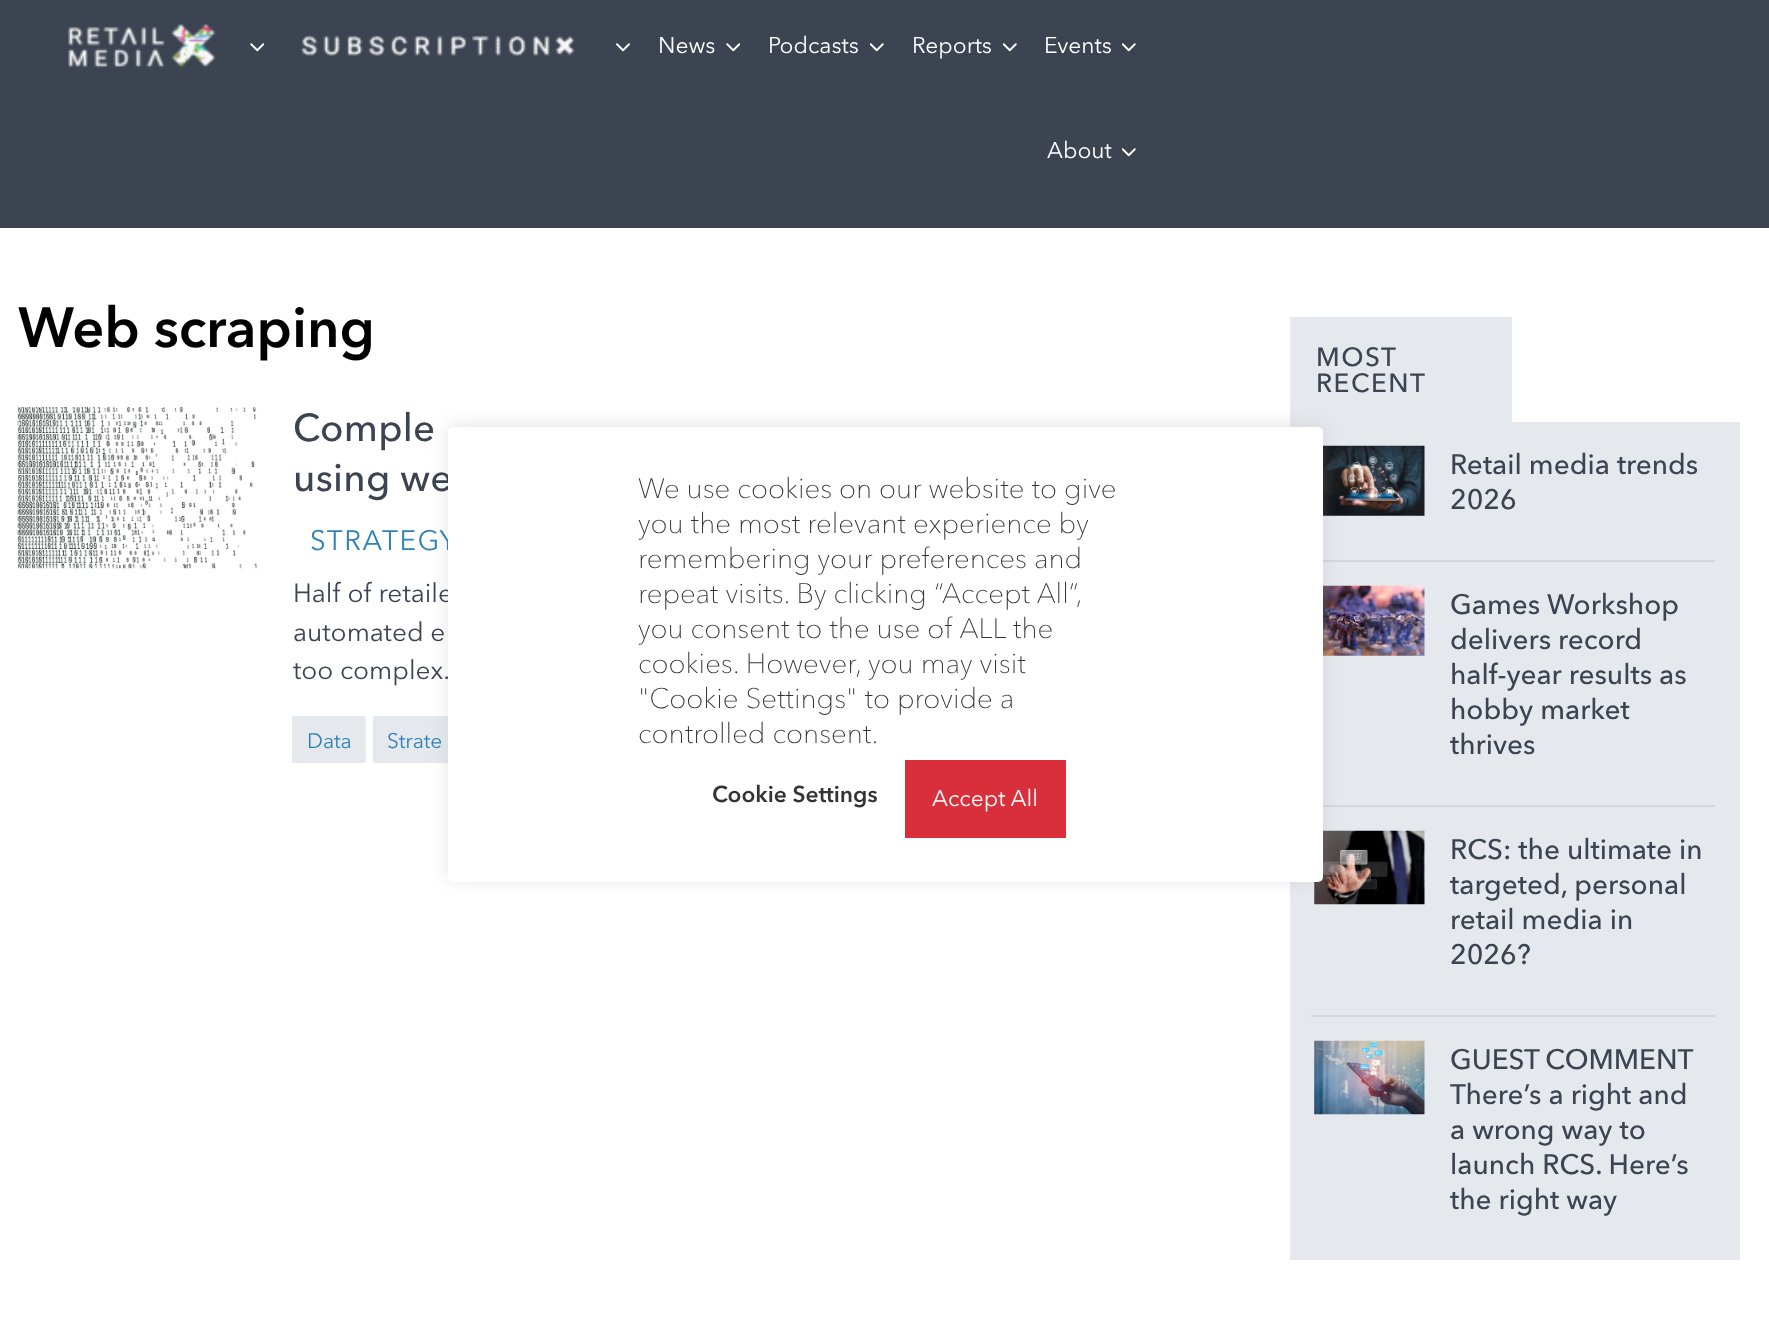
<!DOCTYPE html>
<meta charset="utf-8">
<style>body { margin: 0 } canvas { display: block }</style>
<canvas id="canvas" width="1769" height="1324"></canvas>
<img id="img1" src="images/1.png" hidden>
<img id="img2" src="images/2.png" hidden>
<img id="img3" src="images/3.png" hidden>
<img id="img4" src="images/4.png" hidden>
<img id="img5" src="images/5.png" hidden>
<img id="img6" src="images/6.png" hidden>
<img id="img7" src="images/7.png" hidden>
<img id="img8" src="images/8.png" hidden>
<img id="img9" src="images/9.png" hidden>
<img id="img10" src="images/10.png" hidden>
<script>
window.onload = function () {
    const canvas = document.getElementById('canvas');
    const context = canvas.getContext('2d');
    context.miterLimit = 4;
    context.fontKerning = 'normal';

    context.fillStyle = 'rgb(255, 255, 255)';
    context.fillRect(0, 0, 1769, 1324);
    context.fillStyle = 'rgb(61, 68, 81)';
    context.fillRect(0, 0, 1769, 228);
    context.drawImage(document.getElementById('img1'), 68, 23, 148, 45);
    context.drawImage(document.getElementById('img2'), 250, 43, 14, 9);
    context.drawImage(document.getElementById('img3'), 300, 35, 275, 21);
    context.drawImage(document.getElementById('img4'), 616, 43, 14, 9);
    context.drawImage(document.getElementById('img2'), 726, 43, 14, 9);
    context.drawImage(document.getElementById('img5'), 870, 43, 14, 9);
    context.drawImage(document.getElementById('img5'), 1003, 43, 14, 9);
    context.drawImage(document.getElementById('img5'), 1122, 43, 14, 9);
    context.drawImage(document.getElementById('img5'), 1122, 148, 14, 9);
    context.drawImage(document.getElementById('img6'), 17, 407, 240, 162);
    context.fillStyle = 'rgb(229, 233, 238)';
    context.beginPath();
    context.roundRect(292, 716, 74, 47, 2);
    context.fill();
    context.beginPath();
    context.roundRect(373, 716, 233, 47, 2);
    context.fill();
    context.fillRect(1290, 317, 222, 105);
    context.fillRect(1290, 422, 450, 140);
    context.drawImage(document.getElementById('img7'), 1323, 445, 102, 71);
    context.fillStyle = 'rgb(213, 214, 217)';
    context.fillRect(1323, 560, 392, 2);
    context.fillStyle = 'rgb(229, 233, 238)';
    context.fillRect(1323, 562, 417, 245);
    context.drawImage(document.getElementById('img8'), 1323, 585, 102, 71);
    context.fillStyle = 'rgb(213, 214, 217)';
    context.fillRect(1323, 805, 392, 2);
    context.fillStyle = 'rgb(229, 233, 238)';
    context.fillRect(1290, 807, 450, 453);
    context.drawImage(document.getElementById('img9'), 1314, 830, 111, 75);
    context.fillStyle = 'rgb(213, 214, 217)';
    context.fillRect(1311, 1015, 404, 2);
    context.drawImage(document.getElementById('img10'), 1314, 1040, 111, 75);
    context.fillStyle = 'rgba(172, 171, 171, 0.3)';
    context.filter = 'blur(9px)';
    context.beginPath();
    context.roundRect(448, 425, 875, 455, 5);
    context.fill();
    context.filter = 'none';
    context.font = '22.75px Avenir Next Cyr';
    context.fillStyle = 'rgb(255, 255, 255)';
    context.fillText('News', 658, 53);
    context.fillText('Podcasts', 768, 53);
    context.fillText('Reports', 912, 53);
    context.fillText('Events', 1044, 53);
    context.fillText('About', 1047, 158);
    context.font = 'bold 56px Avenir Next Cyr';
    context.fillStyle = 'rgb(0, 0, 0)';
    context.fillText('Web scraping', 18, 347);
    context.letterSpacing = '0.25px';
    context.font = '500 38.5px Avenir Next Cyr';
    context.fillStyle = 'rgb(61, 68, 81)';
    context.fillText('Comple', 293, 441);
    context.fillText('using we', 293, 491);
    context.letterSpacing = '1.5px';
    context.font = '28px Avenir Next Cyr';
    context.fillStyle = 'rgb(47, 129, 183)';
    context.fillText('STRATEGY', 310, 550);
    context.letterSpacing = '0px';
    context.font = '26.25px Avenir Next Cyr';
    context.fillStyle = 'rgb(61, 68, 81)';
    context.fillText('Half of retaile', 293, 602);
    context.fillText('automated e', 293, 641);
    context.fillText('too complex.', 293, 679);
    context.font = '21px Avenir Next Cyr';
    context.fillStyle = 'rgb(47, 129, 183)';
    context.fillText('Data', 307, 748);
    context.fillText('Strate', 387, 748);
    context.letterSpacing = '1.5px';
    context.font = '500 26.25px Avenir Next Cyr';
    context.fillStyle = 'rgb(61, 68, 81)';
    context.fillText('MOST', 1316, 366);
    context.fillText('RECENT', 1316, 392);
    context.letterSpacing = '0px';
    context.font = '500 28px Avenir Next Cyr';
    context.fillText('Retail media trends', 1450, 474);
    context.fillText('2026', 1450, 509);
    context.fillText('Games Workshop', 1450, 614);
    context.fillText('delivers record', 1450, 649);
    context.fillText('half-year results as', 1450, 684);
    context.fillText('hobby market', 1450, 719);
    context.fillText('thrives', 1450, 754);
    context.fillText('RCS: the ultimate in', 1450, 859);
    context.fillText('targeted, personal', 1450, 894);
    context.fillText('retail media in', 1450, 929);
    context.fillText('2026?', 1450, 964);
    context.wordSpacing = '-1px';
    context.fillText('GUEST COMMENT', 1450, 1069);
    context.wordSpacing = '0px';
    context.fillText('There’s a right and', 1450, 1104);
    context.fillText('a wrong way to', 1450, 1139);
    context.fillText('launch RCS. Here’s', 1450, 1174);
    context.fillText('the right way', 1450, 1209);
    context.fillStyle = 'rgb(255, 255, 255)';
    context.beginPath();
    context.roundRect(448, 427, 875, 455, 5);
    context.fill();
    context.font = '100 28px Avenir Next Cyr';
    context.fillStyle = 'rgb(51, 51, 51)';
    context.fillText('We use cookies on our website to give', 638, 498);
    context.fillText('you the most relevant experience by', 638, 533);
    context.fillText('remembering your preferences and', 638, 568);
    context.fillText('repeat visits. By clicking “Accept All”,', 638, 603);
    context.fillText('you consent to the use of ALL the', 638, 638);
    context.fillText('cookies. However, you may visit', 638, 673);
    context.fillText('"Cookie Settings" to provide a', 638, 708);
    context.fillText('controlled consent.', 638, 743);
    context.font = 'bold 22.75px Avenir Next Cyr';
    context.fillText('Cookie Settings', 712, 802);
    context.fillStyle = 'rgb(217, 47, 58)';
    context.fillRect(905, 760, 161, 78);
    context.font = '22.75px Avenir Next Cyr';
    context.fillStyle = 'rgb(255, 255, 255)';
    context.fillText('Accept All', 932, 806);
};
</script>
